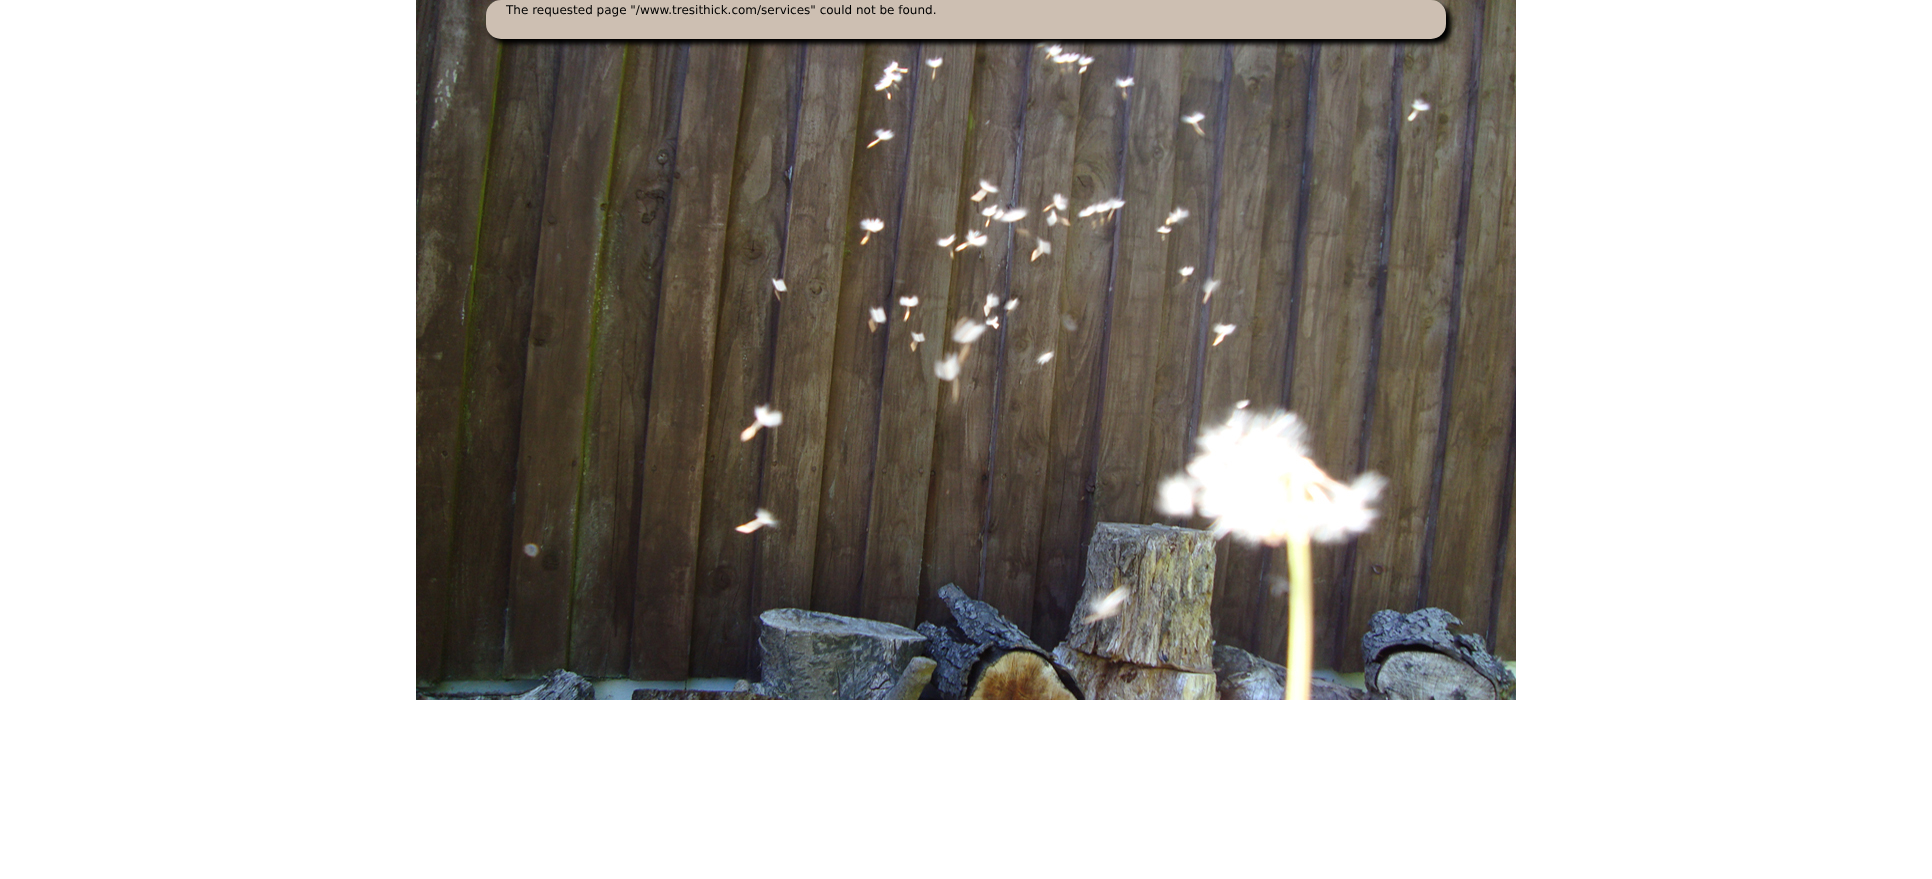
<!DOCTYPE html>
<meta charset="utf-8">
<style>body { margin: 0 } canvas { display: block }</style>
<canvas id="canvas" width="1932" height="879"></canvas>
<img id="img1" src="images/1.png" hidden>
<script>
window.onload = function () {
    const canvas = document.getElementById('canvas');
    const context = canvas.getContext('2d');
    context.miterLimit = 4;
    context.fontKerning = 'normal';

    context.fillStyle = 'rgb(255, 255, 255)';
    context.fillRect(0, 0, 1932, 879);
    context.drawImage(document.getElementById('img1'), 416, 0, 1100, 700);
    context.fillStyle = 'rgb(0, 0, 0)';
    context.filter = 'blur(2.5px)';
    context.beginPath();
    context.roundRect(491, 5, 960, 39, 15);
    context.fill();
    context.filter = 'none';
    context.fillStyle = 'rgb(205, 191, 178)';
    context.beginPath();
    context.roundRect(486, 0, 960, 39, 15);
    context.fill();
    context.font = '12px DejaVu Sans';
    context.fillStyle = 'rgb(0, 0, 0)';
    context.fillText('The requested page "/www.tresithick.com/services" could not be found.', 506, 14);
};
</script>
